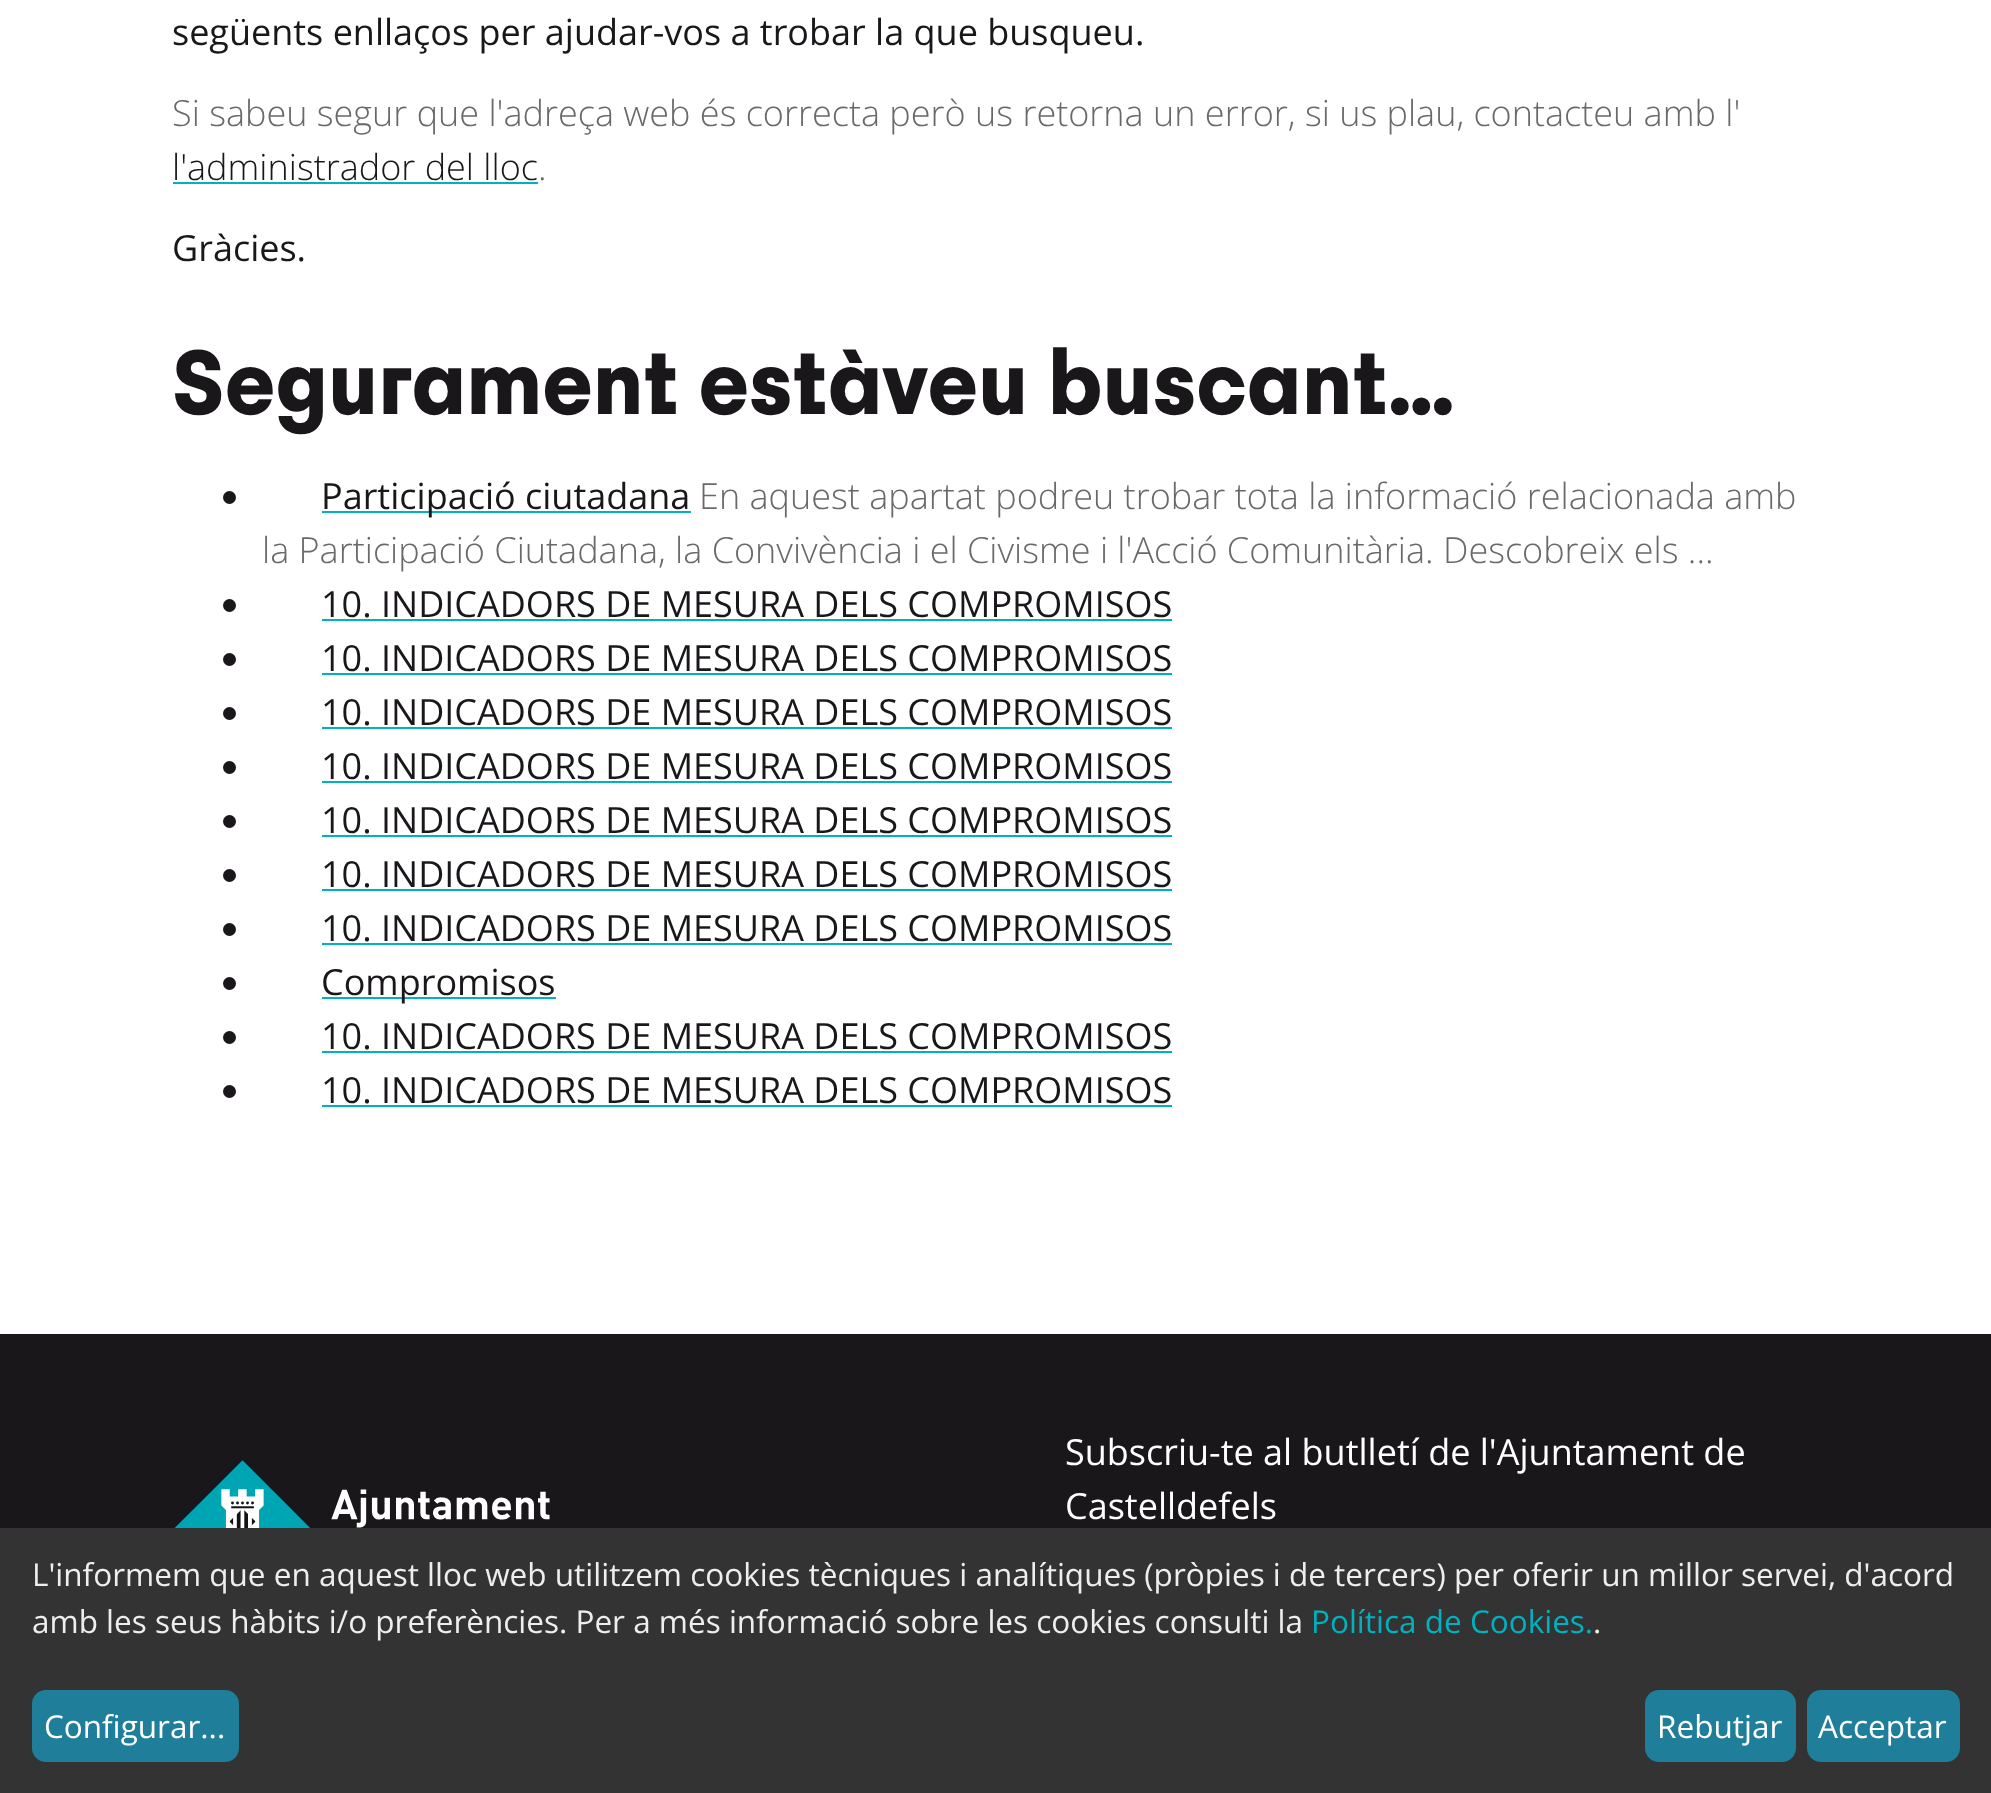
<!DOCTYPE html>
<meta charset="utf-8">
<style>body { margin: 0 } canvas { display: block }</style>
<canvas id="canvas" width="1991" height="1793"></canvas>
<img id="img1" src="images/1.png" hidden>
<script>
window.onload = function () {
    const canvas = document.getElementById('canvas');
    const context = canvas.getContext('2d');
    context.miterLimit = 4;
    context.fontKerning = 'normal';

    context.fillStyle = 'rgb(255, 255, 255)';
    context.fillRect(0, 0, 1991, 1793);
    context.fillStyle = 'rgb(0, 178, 192)';
    context.fillRect(173, 182, 365, 2);
    context.fillStyle = 'rgb(26, 23, 27)';
    context.beginPath();
    context.arc(229.5, 497.5, 6.5, 0, 2 * Math.PI);
    context.fill();
    context.fillStyle = 'rgb(0, 178, 192)';
    context.fillRect(322, 511, 369, 2);
    context.fillStyle = 'rgb(26, 23, 27)';
    context.beginPath();
    context.arc(229.5, 605.5, 6.5, 0, 2 * Math.PI);
    context.fill();
    context.fillStyle = 'rgb(0, 178, 192)';
    context.fillRect(322, 619, 850, 2);
    context.fillStyle = 'rgb(26, 23, 27)';
    context.beginPath();
    context.arc(229.5, 659.5, 6.5, 0, 2 * Math.PI);
    context.fill();
    context.fillStyle = 'rgb(0, 178, 192)';
    context.fillRect(322, 673, 850, 2);
    context.fillStyle = 'rgb(26, 23, 27)';
    context.beginPath();
    context.arc(229.5, 713.5, 6.5, 0, 2 * Math.PI);
    context.fill();
    context.fillStyle = 'rgb(0, 178, 192)';
    context.fillRect(322, 727, 850, 2);
    context.fillStyle = 'rgb(26, 23, 27)';
    context.beginPath();
    context.arc(229.5, 767.5, 6.5, 0, 2 * Math.PI);
    context.fill();
    context.fillStyle = 'rgb(0, 178, 192)';
    context.fillRect(322, 781, 850, 2);
    context.fillStyle = 'rgb(26, 23, 27)';
    context.beginPath();
    context.arc(229.5, 821.5, 6.5, 0, 2 * Math.PI);
    context.fill();
    context.fillStyle = 'rgb(0, 178, 192)';
    context.fillRect(322, 835, 850, 2);
    context.fillStyle = 'rgb(26, 23, 27)';
    context.beginPath();
    context.arc(229.5, 875.5, 6.5, 0, 2 * Math.PI);
    context.fill();
    context.fillStyle = 'rgb(0, 178, 192)';
    context.fillRect(322, 889, 850, 2);
    context.fillStyle = 'rgb(26, 23, 27)';
    context.beginPath();
    context.arc(229.5, 929.5, 6.5, 0, 2 * Math.PI);
    context.fill();
    context.fillStyle = 'rgb(0, 178, 192)';
    context.fillRect(322, 943, 850, 2);
    context.fillStyle = 'rgb(26, 23, 27)';
    context.beginPath();
    context.arc(229.5, 983.5, 6.5, 0, 2 * Math.PI);
    context.fill();
    context.fillStyle = 'rgb(0, 178, 192)';
    context.fillRect(322, 997, 234, 2);
    context.fillStyle = 'rgb(26, 23, 27)';
    context.beginPath();
    context.arc(229.5, 1037.5, 6.5, 0, 2 * Math.PI);
    context.fill();
    context.fillStyle = 'rgb(0, 178, 192)';
    context.fillRect(322, 1051, 850, 2);
    context.fillStyle = 'rgb(26, 23, 27)';
    context.beginPath();
    context.arc(229.5, 1091.5, 6.5, 0, 2 * Math.PI);
    context.fill();
    context.fillStyle = 'rgb(0, 178, 192)';
    context.fillRect(322, 1105, 850, 2);
    context.fillStyle = 'rgb(26, 23, 27)';
    context.fillRect(0, 1334, 1991, 194);
    context.drawImage(document.getElementById('img1'), 174, 1460, 376, 68);
    context.fillStyle = 'rgb(51, 51, 51)';
    context.fillRect(0, 1528, 1991, 265);
    context.fillStyle = 'rgb(31, 126, 154)';
    context.beginPath();
    context.roundRect(32, 1690, 207, 72, 14);
    context.fill();
    context.beginPath();
    context.roundRect(1645, 1690, 151, 72, 14);
    context.fill();
    context.beginPath();
    context.roundRect(1807, 1690, 153, 72, 14);
    context.fill();
    context.font = '36px Open Sans';
    context.fillStyle = 'rgb(26, 23, 27)';
    context.fillText('següents enllaços per ajudar-vos a trobar la que busqueu.', 172, 45);
    context.font = '300 36px Open Sans';
    context.fillStyle = 'rgb(105, 105, 105)';
    context.fillText('Si sabeu segur que l\'adreça web és correcta però us retorna un error, si us plau, contacteu amb l\'', 172, 126);
    context.fillStyle = 'rgb(26, 23, 27)';
    context.fillText('l\'administrador del lloc', 172, 180);
    context.fillStyle = 'rgb(105, 105, 105)';
    context.fillText('.', 538, 180);
    context.font = '36px Open Sans';
    context.fillStyle = 'rgb(26, 23, 27)';
    context.fillText('Gràcies.', 172, 261);
    context.font = 'bold 90px "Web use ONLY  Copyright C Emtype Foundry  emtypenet"';
    context.fillText('Segurament estàveu buscant…', 172, 414);
    context.font = '36px Open Sans';
    context.fillText('Participació ciutadana', 321, 509);
    context.font = '300 36px Open Sans';
    context.fillStyle = 'rgb(105, 105, 105)';
    context.fillText('En aquest apartat podreu trobar tota la informació relacionada amb', 699, 509);
    context.fillText('la Participació Ciutadana, la Convivència i el Civisme i l\'Acció Comunitària. Descobreix els ...', 262, 563);
    context.font = '36px Open Sans';
    context.fillStyle = 'rgb(26, 23, 27)';
    context.fillText('10. INDICADORS DE MESURA DELS COMPROMISOS', 321, 617);
    context.fillText('10. INDICADORS DE MESURA DELS COMPROMISOS', 321, 671);
    context.fillText('10. INDICADORS DE MESURA DELS COMPROMISOS', 321, 725);
    context.fillText('10. INDICADORS DE MESURA DELS COMPROMISOS', 321, 779);
    context.fillText('10. INDICADORS DE MESURA DELS COMPROMISOS', 321, 833);
    context.fillText('10. INDICADORS DE MESURA DELS COMPROMISOS', 321, 887);
    context.fillText('10. INDICADORS DE MESURA DELS COMPROMISOS', 321, 941);
    context.fillText('Compromisos', 321, 995);
    context.fillText('10. INDICADORS DE MESURA DELS COMPROMISOS', 321, 1049);
    context.fillText('10. INDICADORS DE MESURA DELS COMPROMISOS', 321, 1103);
    context.fillStyle = 'rgb(255, 255, 255)';
    context.fillText('Subscriu-te al butlletí de l\'Ajuntament de', 1065, 1465);
    context.fillText('Castelldefels', 1065, 1519);
    context.font = '31.5px Open Sans';
    context.fillStyle = 'rgb(238, 238, 238)';
    context.fillText('L\'informem que en aquest lloc web utilitzem cookies tècniques i analítiques (pròpies i de tercers) per oferir un millor servei, d\'acord', 32, 1586);
    context.fillText('amb les seus hàbits i/o preferències. Per a més informació sobre les cookies consulti la', 32, 1633);
    context.fillStyle = 'rgb(0, 178, 192)';
    context.fillText('Política de Cookies.', 1311, 1633);
    context.fillStyle = 'rgb(238, 238, 238)';
    context.fillText('.', 1593, 1633);
    context.fillStyle = 'rgb(255, 255, 255)';
    context.fillText('Configurar...', 44, 1738);
    context.fillText('Rebutjar', 1657, 1738);
    context.fillText('Acceptar', 1818, 1738);
};
</script>
